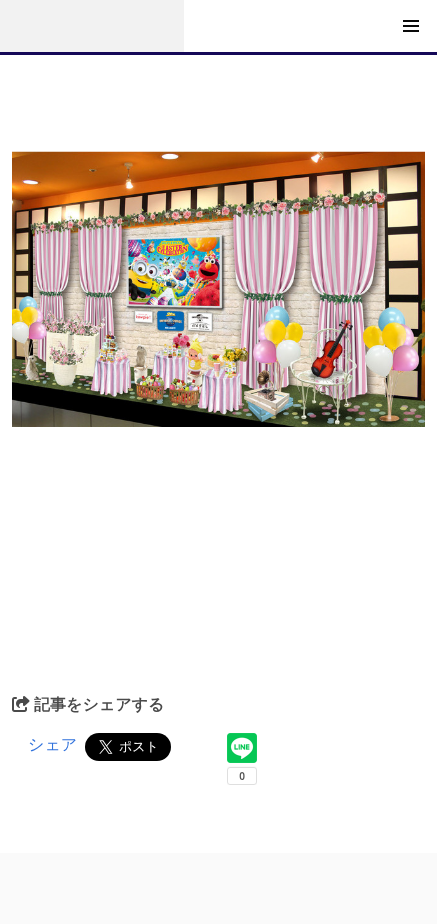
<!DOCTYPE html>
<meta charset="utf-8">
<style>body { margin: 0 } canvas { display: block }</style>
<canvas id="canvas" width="437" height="924"></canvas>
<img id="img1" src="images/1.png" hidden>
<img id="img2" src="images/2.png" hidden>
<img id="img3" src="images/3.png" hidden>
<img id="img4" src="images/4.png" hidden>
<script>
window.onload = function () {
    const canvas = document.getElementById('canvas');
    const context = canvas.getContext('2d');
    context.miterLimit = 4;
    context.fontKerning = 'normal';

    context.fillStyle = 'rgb(255, 255, 255)';
    context.fillRect(0, 0, 437, 924);
    context.fillStyle = 'rgb(21, 9, 88)';
    context.fillRect(0, 52, 437, 3);
    context.fillStyle = 'rgb(242, 242, 242)';
    context.fillRect(0, 0, 184, 52);
    context.fillStyle = 'rgb(10, 10, 10)';
    context.fillRect(403, 20, 16, 2);
    context.fillRect(403, 25, 16, 2);
    context.fillRect(403, 30, 16, 2);
    context.drawImage(document.getElementById('img1'), 12, 151, 413, 276);
    context.drawImage(document.getElementById('img2'), 12, 696, 18, 16);
    context.drawImage(document.getElementById('img3'), 85, 733, 86, 28);
    context.drawImage(document.getElementById('img4'), 227, 733, 30, 52);
    context.fillStyle = 'rgb(250, 250, 250)';
    context.fillRect(0, 853, 437, 71);
    context.font = 'bold 16px WenQuanYi Zen Hei';
    context.fillStyle = 'rgb(74, 74, 74)';
    context.fillText('記事をシェアする', 34, 710);
    context.font = '500 16px WenQuanYi Zen Hei';
    context.fillStyle = 'rgb(50, 115, 220)';
    context.fillText('シェア', 28, 750);
};
</script>
